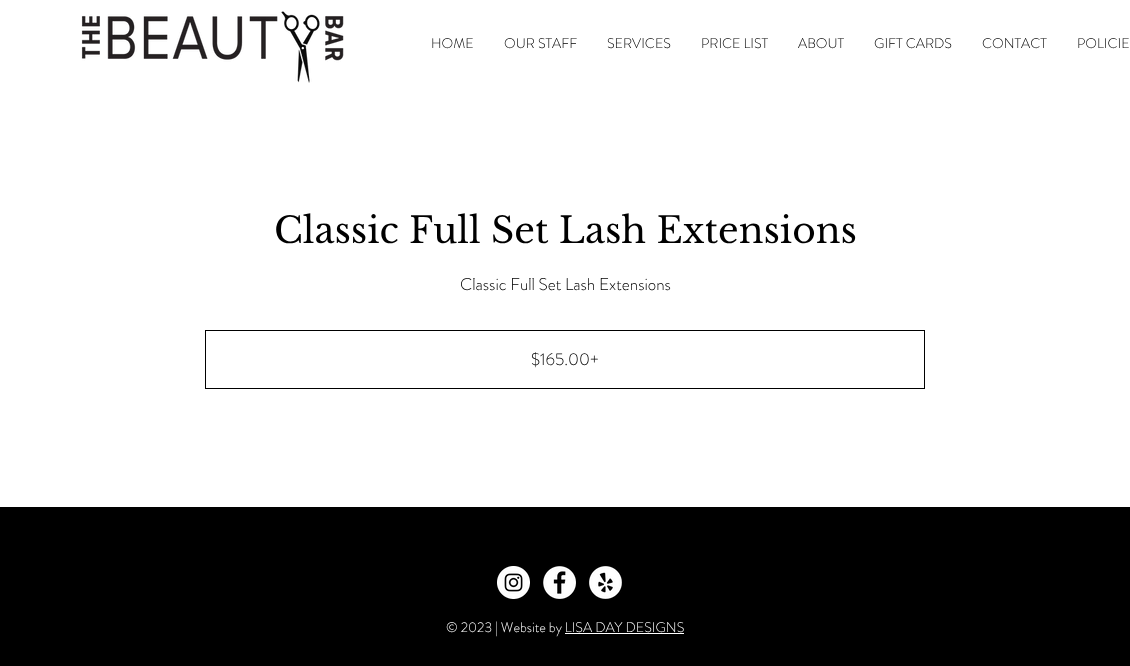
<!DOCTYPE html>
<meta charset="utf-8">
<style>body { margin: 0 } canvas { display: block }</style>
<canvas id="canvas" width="1130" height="666"></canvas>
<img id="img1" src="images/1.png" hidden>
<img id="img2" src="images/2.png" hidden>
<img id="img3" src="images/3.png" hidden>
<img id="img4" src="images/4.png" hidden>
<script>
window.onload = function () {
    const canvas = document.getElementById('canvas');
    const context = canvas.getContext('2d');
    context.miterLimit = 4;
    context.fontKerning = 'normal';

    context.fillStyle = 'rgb(255, 255, 255)';
    context.fillRect(0, 0, 1130, 666);
    context.drawImage(document.getElementById('img1'), 81, 11, 263, 72);
    context.strokeStyle = 'rgb(0, 0, 0)';
    context.strokeRect(205.5, 330.5, 719, 58);
    context.fillStyle = 'rgb(0, 0, 0)';
    context.fillRect(0, 507, 1130, 159);
    context.drawImage(document.getElementById('img2'), 497, 566, 33, 33);
    context.drawImage(document.getElementById('img3'), 543, 566, 33, 33);
    context.drawImage(document.getElementById('img4'), 589, 566, 33, 33);
    context.fillStyle = 'rgb(255, 255, 255)';
    context.fillRect(565, 633, 119, 1);
    context.font = '300 14px "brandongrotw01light"';
    context.fillStyle = 'rgb(0, 0, 0)';
    context.fillText('HOME', 431, 48);
    context.fillText('OUR STAFF', 504, 48);
    context.fillText('SERVICES', 607, 48);
    context.fillText('PRICE LIST', 701, 48);
    context.fillText('ABOUT', 798, 48);
    context.fillText('GIFT CARDS', 874, 48);
    context.fillText('CONTACT', 982, 48);
    context.fillText('POLICIE', 1077, 48);
    context.font = '36px Libre Baskerville';
    context.fillText('Classic Full Set Lash Extensions', 274, 243);
    context.font = '300 17px "brandongrotw01light"';
    context.fillText('Classic Full Set Lash Extensions', 460, 290);
    context.fillText('$165.00+', 531, 365);
    context.font = '300 14px "brandongrotw01light"';
    context.fillStyle = 'rgb(255, 255, 255)';
    context.fillText('© 2023 | Website by LISA DAY DESIGNS', 446, 632);
};
</script>
